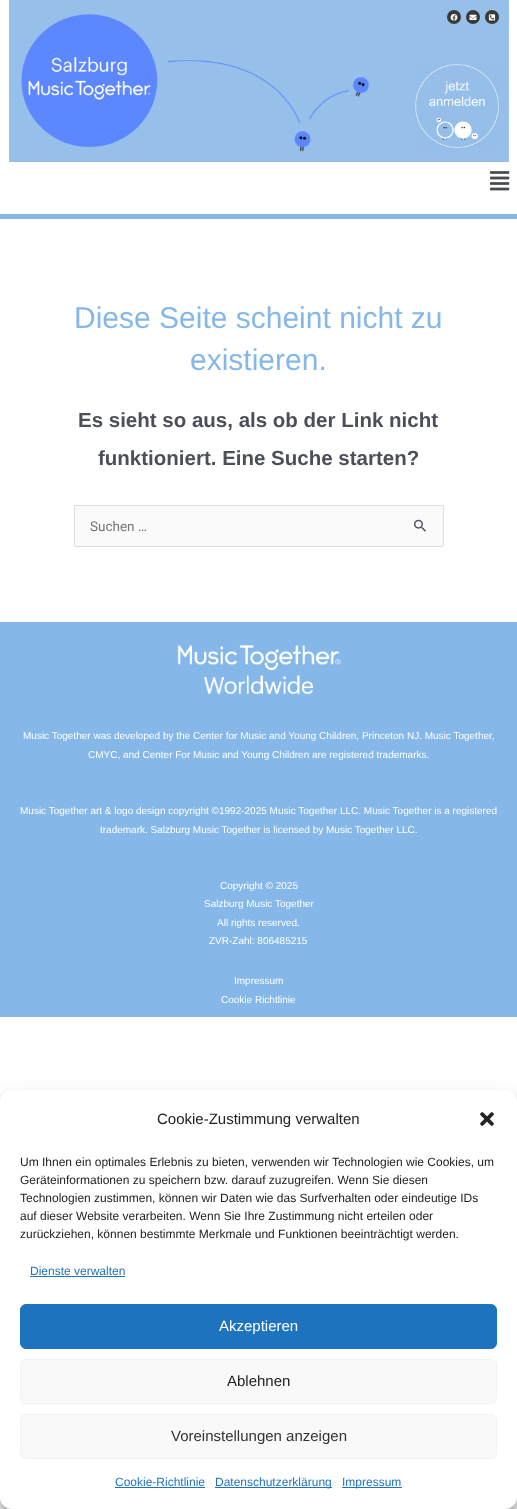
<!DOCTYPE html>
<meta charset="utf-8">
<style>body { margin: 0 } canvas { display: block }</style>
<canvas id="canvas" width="517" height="1509"></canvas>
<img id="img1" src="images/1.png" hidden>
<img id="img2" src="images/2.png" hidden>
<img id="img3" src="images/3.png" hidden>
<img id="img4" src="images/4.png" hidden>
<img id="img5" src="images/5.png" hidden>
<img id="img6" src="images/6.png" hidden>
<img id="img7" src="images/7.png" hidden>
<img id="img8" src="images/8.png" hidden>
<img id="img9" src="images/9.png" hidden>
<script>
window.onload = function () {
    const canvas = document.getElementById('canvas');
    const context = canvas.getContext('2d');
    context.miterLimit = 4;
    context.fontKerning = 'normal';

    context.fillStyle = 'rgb(255, 255, 255)';
    context.fillRect(0, 0, 517, 1509);
    context.fillStyle = 'rgb(150, 192, 234)';
    context.fillRect(9, 0, 500, 162);
    context.drawImage(document.getElementById('img1'), 21, 14, 348, 138);
    context.fillStyle = 'rgb(58, 58, 58)';
    context.beginPath();
    context.arc(454, 17, 7, 0, 2 * Math.PI);
    context.fill();
    context.drawImage(document.getElementById('img2'), 450, 14, 8, 7);
    context.beginPath();
    context.arc(473, 17, 7, 0, 2 * Math.PI);
    context.fill();
    context.drawImage(document.getElementById('img3'), 469, 14, 8, 6);
    context.beginPath();
    context.arc(492, 17, 7, 0, 2 * Math.PI);
    context.fill();
    context.drawImage(document.getElementById('img4'), 488, 14, 8, 7);
    context.drawImage(document.getElementById('img5'), 415, 64, 84, 84);
    context.drawImage(document.getElementById('img6'), 490, 171, 20, 20);
    context.fillStyle = 'rgb(133, 184, 233)';
    context.fillRect(0, 214, 517, 5);
    context.fillStyle = 'rgb(250, 250, 250)';
    context.beginPath();
    context.roundRect(74.5, 505.5, 369, 41, 1.5);
    context.fill();
    context.strokeStyle = 'rgb(221, 221, 221)';
    context.stroke();
    context.drawImage(document.getElementById('img7'), 414, 519, 12, 13);
    context.fillStyle = 'rgb(133, 184, 233)';
    context.fillRect(0, 622, 517, 395);
    context.drawImage(document.getElementById('img8'), 177, 645, 164, 50);
    context.fillStyle = 'rgba(0, 0, 0, 0.23)';
    context.filter = 'blur(3px)';
    context.beginPath();
    context.roundRect(0, 1096, 517, 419, 12);
    context.fill();
    context.filter = 'none';
    context.fillStyle = 'rgba(0, 0, 0, 0.19)';
    context.filter = 'blur(10px)';
    context.beginPath();
    context.roundRect(0, 1100, 517, 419, 12);
    context.fill();
    context.filter = 'none';
    context.fillStyle = 'rgb(255, 255, 255)';
    context.beginPath();
    context.roundRect(0, 1090, 517, 419, 12);
    context.fill();
    context.drawImage(document.getElementById('img9'), 480, 1112, 14, 14);
    context.fillStyle = 'rgb(30, 115, 190)';
    context.fillRect(30, 1276, 95, 1);
    context.beginPath();
    context.roundRect(20.5, 1304.5, 476, 44, 5.5);
    context.fill();
    context.strokeStyle = 'rgb(30, 115, 190)';
    context.stroke();
    context.fillStyle = 'rgb(249, 249, 249)';
    context.beginPath();
    context.roundRect(20.5, 1359.5, 476, 44, 5.5);
    context.fill();
    context.strokeStyle = 'rgb(242, 242, 242)';
    context.stroke();
    context.beginPath();
    context.roundRect(20.5, 1414.5, 476, 44, 5.5);
    context.fill();
    context.stroke();
    context.fillStyle = 'rgb(30, 115, 190)';
    context.fillRect(115, 1487, 90, 1);
    context.fillRect(215, 1487, 117, 1);
    context.fillRect(342, 1487, 60, 1);
    context.font = '30px Liberation Sans';
    context.fillStyle = 'rgb(133, 184, 233)';
    context.fillText('Diese Seite scheint nicht zu', 74, 328);
    context.fillText('existieren.', 190, 370);
    context.font = 'bold 20.5px Liberation Sans';
    context.fillStyle = 'rgb(75, 79, 88)';
    context.fillText('Es sieht so aus, als ob der Link nicht', 78, 427);
    context.fillText('funktioniert. Eine Suche starten?', 98, 465);
    context.font = '13.5px Roboto';
    context.fillStyle = 'rgb(117, 117, 117)';
    context.fillText('Suchen …', 90, 531);
    context.font = '10px Liberation Sans';
    context.fillStyle = 'rgb(255, 255, 255)';
    context.fillText('Music Together was developed by the Center for Music and Young Children, Princeton NJ. Music Together,', 23, 739);
    context.fillText('CMYC, and Center For Music and Young Children are registered trademarks.', 88, 758);
    context.fillText('Music Together art & logo design copyright ©1992-2025 Music Together LLC. Music Together is a registered', 20, 814);
    context.fillText('trademark. Salzburg Music Together is licensed by Music Together LLC.', 100, 833);
    context.fillText('Copyright © 2025', 220, 889);
    context.fillText('Salzburg Music Together', 204, 907);
    context.fillText('All rights reserved.', 217, 926);
    context.fillText('ZVR-Zahl: 806485215', 209, 944);
    context.fillText('Impressum', 234, 984);
    context.fillText('Cookie Richtlinie', 221, 1003);
    context.font = '15px Liberation Sans';
    context.fillStyle = 'rgb(34, 34, 34)';
    context.fillText('Cookie-Zustimmung verwalten', 157, 1124);
    context.font = '12px Liberation Sans';
    context.fillText('Um Ihnen ein optimales Erlebnis zu bieten, verwenden wir Technologien wie Cookies, um', 20, 1166);
    context.fillText('Geräteinformationen zu speichern bzw. darauf zuzugreifen. Wenn Sie diesen', 20, 1184);
    context.fillText('Technologien zustimmen, können wir Daten wie das Surfverhalten oder eindeutige IDs', 20, 1202);
    context.fillText('auf dieser Website verarbeiten. Wenn Sie Ihre Zustimmung nicht erteilen oder', 20, 1220);
    context.fillText('zurückziehen, können bestimmte Merkmale und Funktionen beeinträchtigt werden.', 20, 1238);
    context.fillStyle = 'rgb(30, 115, 190)';
    context.fillText('Dienste verwalten', 30, 1275);
    context.font = '15px Liberation Sans';
    context.fillStyle = 'rgb(255, 255, 255)';
    context.fillText('Akzeptieren', 219, 1331);
    context.fillStyle = 'rgb(34, 34, 34)';
    context.fillText('Ablehnen', 227, 1386);
    context.fillStyle = 'rgb(51, 51, 51)';
    context.fillText('Voreinstellungen anzeigen', 171, 1441);
    context.font = '12px Liberation Sans';
    context.fillStyle = 'rgb(30, 115, 190)';
    context.fillText('Cookie-Richtlinie', 115, 1486);
    context.fillText('Datenschutzerklärung', 215, 1486);
    context.fillText('Impressum', 342, 1486);
};
</script>
